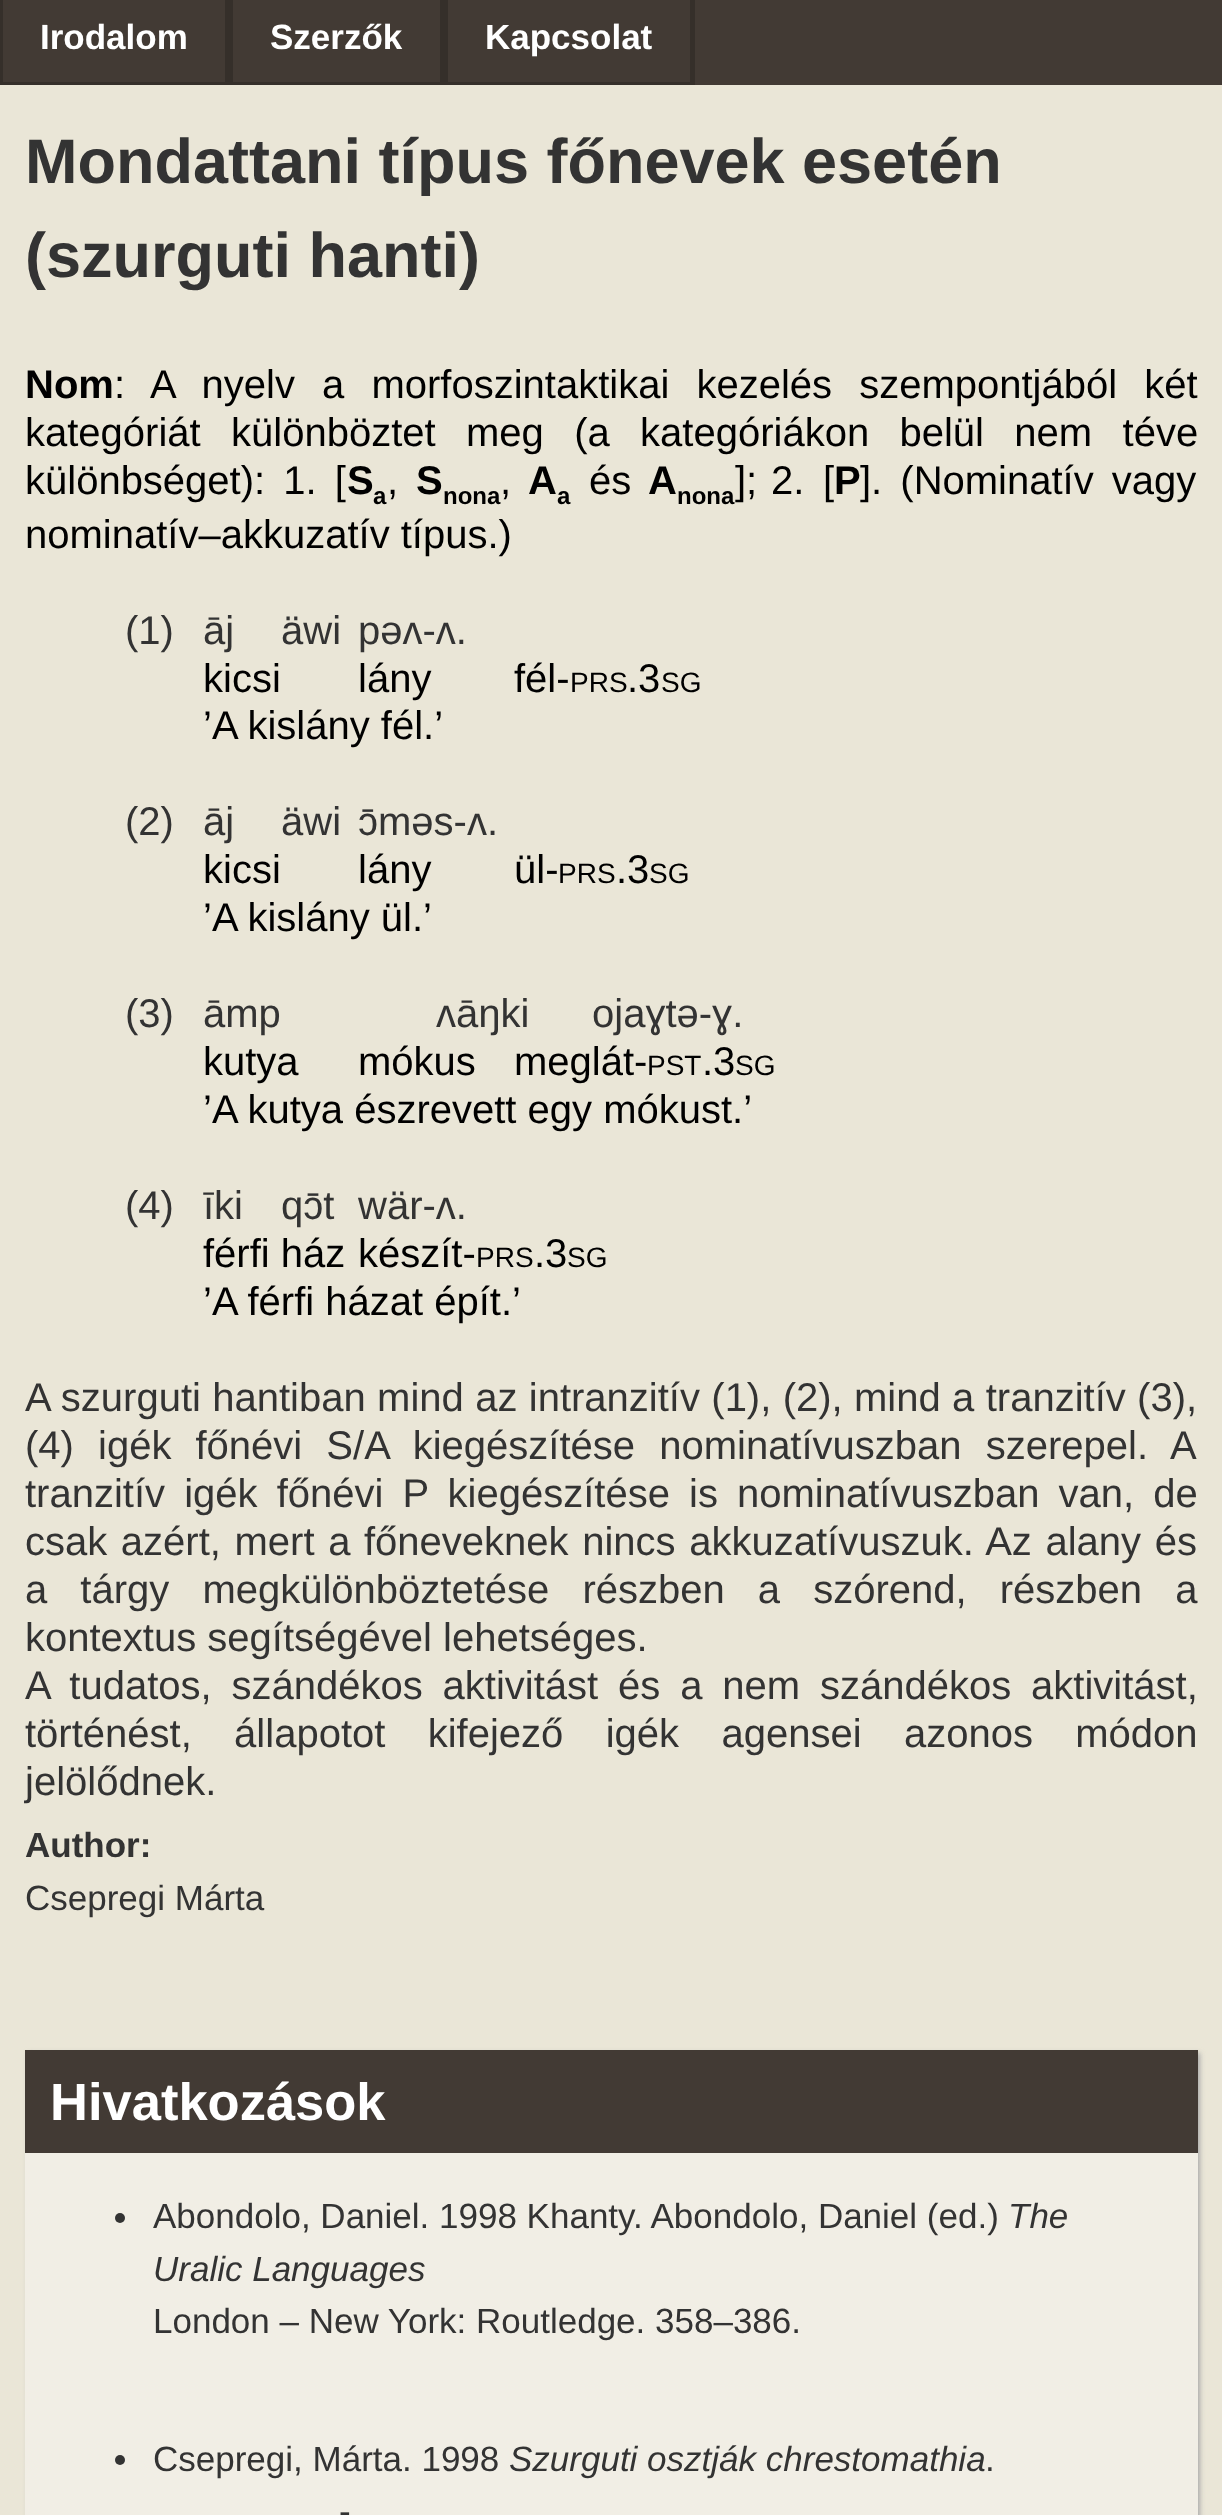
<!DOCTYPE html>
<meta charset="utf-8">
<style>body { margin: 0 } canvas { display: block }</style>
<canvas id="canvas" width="1222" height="2515"></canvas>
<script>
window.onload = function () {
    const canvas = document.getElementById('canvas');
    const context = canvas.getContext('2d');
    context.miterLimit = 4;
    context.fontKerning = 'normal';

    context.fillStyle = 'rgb(234, 230, 215)';
    context.fillRect(0, 0, 1222, 2515);
    context.fillStyle = 'rgb(66, 58, 52)';
    context.fillRect(3, 0, 1219, 85);
    context.strokeStyle = 'rgb(53, 47, 42)';
    context.lineWidth = 3;
    context.strokeRect(1.5, -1.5, 227, 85);
    context.fillStyle = 'rgb(53, 47, 42)';
    context.fillRect(225, 0, 2, 83);
    context.strokeRect(231.5, -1.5, 212, 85);
    context.fillRect(440, 0, 2, 83);
    context.strokeRect(446.5, -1.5, 247, 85);
    context.fillRect(690, 0, 2, 83);
    context.fillStyle = 'rgb(170, 170, 170)';
    context.filter = 'blur(2.5px)';
    context.beginPath();
    context.rect(28, 2053, 1172, 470);
    context.fill();
    context.filter = 'none';
    context.fillStyle = 'rgb(241, 238, 229)';
    context.fillRect(25, 2153, 1173, 362);
    context.fillStyle = 'rgb(66, 58, 52)';
    context.fillRect(25, 2050, 1173, 103);
    context.fillStyle = 'rgb(51, 51, 51)';
    context.beginPath();
    context.arc(120, 2218, 5, 0, 2 * Math.PI);
    context.fill();
    context.beginPath();
    context.arc(120, 2460, 5, 0, 2 * Math.PI);
    context.fill();
    context.font = 'bold 35px Liberation Sans';
    context.fillStyle = 'rgb(255, 255, 255)';
    context.fillText('Irodalom', 40, 49);
    context.fillText('Szerzők', 270, 49);
    context.fillText('Kapcsolat', 485, 49);
    context.font = 'bold 63px Liberation Sans';
    context.fillStyle = 'rgb(51, 51, 51)';
    context.fillText('Mondattani típus főnevek esetén', 25, 183);
    context.fillText('(szurguti hanti)', 25, 277);
    context.font = 'bold 40px Liberation Sans';
    context.fillStyle = 'rgb(0, 0, 0)';
    context.fillText('Nom', 25, 398);
    context.wordSpacing = '16px';
    context.font = '40px Liberation Sans';
    context.fillText(': A nyelv a morfoszintaktikai kezelés szempontjából két', 114, 398);
    context.wordSpacing = '19.25px';
    context.fillText('kategóriát különböztet meg (a kategóriákon belül nem téve', 25, 446);
    context.wordSpacing = '7px';
    context.fillText('különbséget): 1. [', 25, 494);
    context.wordSpacing = '0px';
    context.font = 'bold 40px Liberation Sans';
    context.fillText('S', 347, 494);
    context.font = 'bold 24px Liberation Sans';
    context.fillText('a', 373, 504);
    context.font = '40px Liberation Sans';
    context.fillText(',', 387, 494);
    context.font = 'bold 40px Liberation Sans';
    context.fillText('S', 416, 494);
    context.font = 'bold 24px Liberation Sans';
    context.fillText('nona', 443, 504);
    context.font = '40px Liberation Sans';
    context.fillText(',', 500, 494);
    context.font = 'bold 40px Liberation Sans';
    context.fillText('A', 528, 494);
    context.font = 'bold 24px Liberation Sans';
    context.fillText('a', 557, 504);
    context.font = '40px Liberation Sans';
    context.fillText('és', 589, 494);
    context.font = 'bold 40px Liberation Sans';
    context.fillText('A', 648, 494);
    context.font = 'bold 24px Liberation Sans';
    context.fillText('nona', 677, 504);
    context.font = '40px Liberation Sans';
    context.fillText('];', 735, 494);
    context.fillText('2.', 771, 494);
    context.fillText('[', 823, 494);
    context.font = 'bold 40px Liberation Sans';
    context.fillText('P', 834, 494);
    context.wordSpacing = '7px';
    context.font = '40px Liberation Sans';
    context.fillText(']. (Nominatív vagy', 860, 494);
    context.wordSpacing = '0px';
    context.fillText('nominatív–akkuzatív típus.)', 25, 548);
    context.fillStyle = 'rgb(51, 51, 51)';
    context.fillText('(1)', 125, 644);
    context.fillText('āj', 203, 644);
    context.fillText('äwi', 281, 644);
    context.fillText('pəʌ-ʌ.', 358, 644);
    context.fillStyle = 'rgb(0, 0, 0)';
    context.fillText('kicsi', 203, 692);
    context.fillText('lány', 358, 692);
    context.fillText('fél-', 514, 692);
    context.font = '28px Liberation Sans';
    context.fillText('PRS', 570, 692);
    context.font = '40px Liberation Sans';
    context.fillText('.3', 627, 692);
    context.font = '28px Liberation Sans';
    context.fillText('SG', 661, 692);
    context.font = '40px Liberation Sans';
    context.fillText('’A kislány fél.’', 203, 739);
    context.fillStyle = 'rgb(51, 51, 51)';
    context.fillText('(2)', 125, 835);
    context.fillText('āj', 203, 835);
    context.fillText('äwi', 281, 835);
    context.fillText('ɔ̄məs-ʌ.', 358, 835);
    context.fillStyle = 'rgb(0, 0, 0)';
    context.fillText('kicsi', 203, 883);
    context.fillText('lány', 358, 883);
    context.fillText('ül-', 514, 883);
    context.font = '28px Liberation Sans';
    context.fillText('PRS', 558, 883);
    context.font = '40px Liberation Sans';
    context.fillText('.3', 616, 883);
    context.font = '28px Liberation Sans';
    context.fillText('SG', 649, 883);
    context.font = '40px Liberation Sans';
    context.fillText('’A kislány ül.’', 203, 931);
    context.fillStyle = 'rgb(51, 51, 51)';
    context.fillText('(3)', 125, 1027);
    context.fillText('āmp', 203, 1027);
    context.fillText('ʌāŋki', 436, 1027);
    context.fillText('ojaɣtə-ɣ.', 592, 1027);
    context.fillStyle = 'rgb(0, 0, 0)';
    context.fillText('kutya', 203, 1075);
    context.fillText('mókus', 358, 1075);
    context.fillText('meglát-', 514, 1075);
    context.font = '28px Liberation Sans';
    context.fillText('PST', 647, 1075);
    context.font = '40px Liberation Sans';
    context.fillText('.3', 702, 1075);
    context.font = '28px Liberation Sans';
    context.fillText('SG', 735, 1075);
    context.font = '40px Liberation Sans';
    context.fillText('’A kutya észrevett egy mókust.’', 203, 1123);
    context.fillStyle = 'rgb(51, 51, 51)';
    context.fillText('(4)', 125, 1219);
    context.fillText('īki', 203, 1219);
    context.fillText('qɔ̄t', 281, 1219);
    context.fillText('wär-ʌ.', 358, 1219);
    context.fillStyle = 'rgb(0, 0, 0)';
    context.fillText('férfi ház', 203, 1267);
    context.fillText('készít-', 358, 1267);
    context.font = '28px Liberation Sans';
    context.fillText('PRS', 476, 1267);
    context.font = '40px Liberation Sans';
    context.fillText('.3', 534, 1267);
    context.font = '28px Liberation Sans';
    context.fillText('SG', 567, 1267);
    context.font = '40px Liberation Sans';
    context.fillText('’A férfi házat épít.’', 203, 1315);
    context.wordSpacing = '0.25px';
    context.fillStyle = 'rgb(51, 51, 51)';
    context.fillText('A szurguti hantiban mind az intranzitív (1), (2), mind a tranzitív (3),', 25, 1411);
    context.wordSpacing = '13px';
    context.fillText('(4) igék főnévi S/A kiegészítése nominatívuszban szerepel. A', 25, 1459);
    context.wordSpacing = '8px';
    context.fillText('tranzitív igék főnévi P kiegészítése is nominatívuszban van, de', 25, 1507);
    context.wordSpacing = '2.5px';
    context.fillText('csak azért, mert a főneveknek nincs akkuzatívuszuk. Az alany és', 25, 1555);
    context.wordSpacing = '22px';
    context.fillText('a tárgy megkülönböztetése részben a szórend, részben a', 25, 1603);
    context.wordSpacing = '0px';
    context.fillText('kontextus segítségével lehetséges.', 25, 1651);
    context.wordSpacing = '8.75px';
    context.fillText('A tudatos, szándékos aktivitást és a nem szándékos aktivitást,', 25, 1699);
    context.wordSpacing = '31.25px';
    context.fillText('történést, állapotot kifejező igék agensei azonos módon', 25, 1747);
    context.wordSpacing = '0px';
    context.fillText('jelölődnek.', 25, 1795);
    context.font = 'bold 35px Liberation Sans';
    context.fillText('Author:', 25, 1857);
    context.font = '35px Liberation Sans';
    context.fillText('Csepregi Márta', 25, 1910);
    context.font = 'bold 52.5px Liberation Sans';
    context.fillStyle = 'rgb(255, 255, 255)';
    context.fillText('Hivatkozások', 50, 2120);
    context.font = '35px Liberation Sans';
    context.fillStyle = 'rgb(51, 51, 51)';
    context.fillText('Abondolo, Daniel. 1998 Khanty', 153, 2228);
    context.fillText('. Abondolo, Daniel (ed.)', 633, 2228);
    context.font = 'italic 35px Liberation Sans';
    context.fillText('The', 1008, 2228);
    context.fillText('Uralic Languages', 153, 2281);
    context.font = '35px Liberation Sans';
    context.fillText('London – New York: Routledge. 358–386.', 153, 2333);
    context.fillText('Csepregi, Márta. 1998', 153, 2471);
    context.font = 'italic 35px Liberation Sans';
    context.fillText('Szurguti osztják chrestomathia', 509, 2471);
    context.font = '35px Liberation Sans';
    context.fillText('.', 985, 2471);
    context.fillText('-', 339, 2523);
};
</script>
